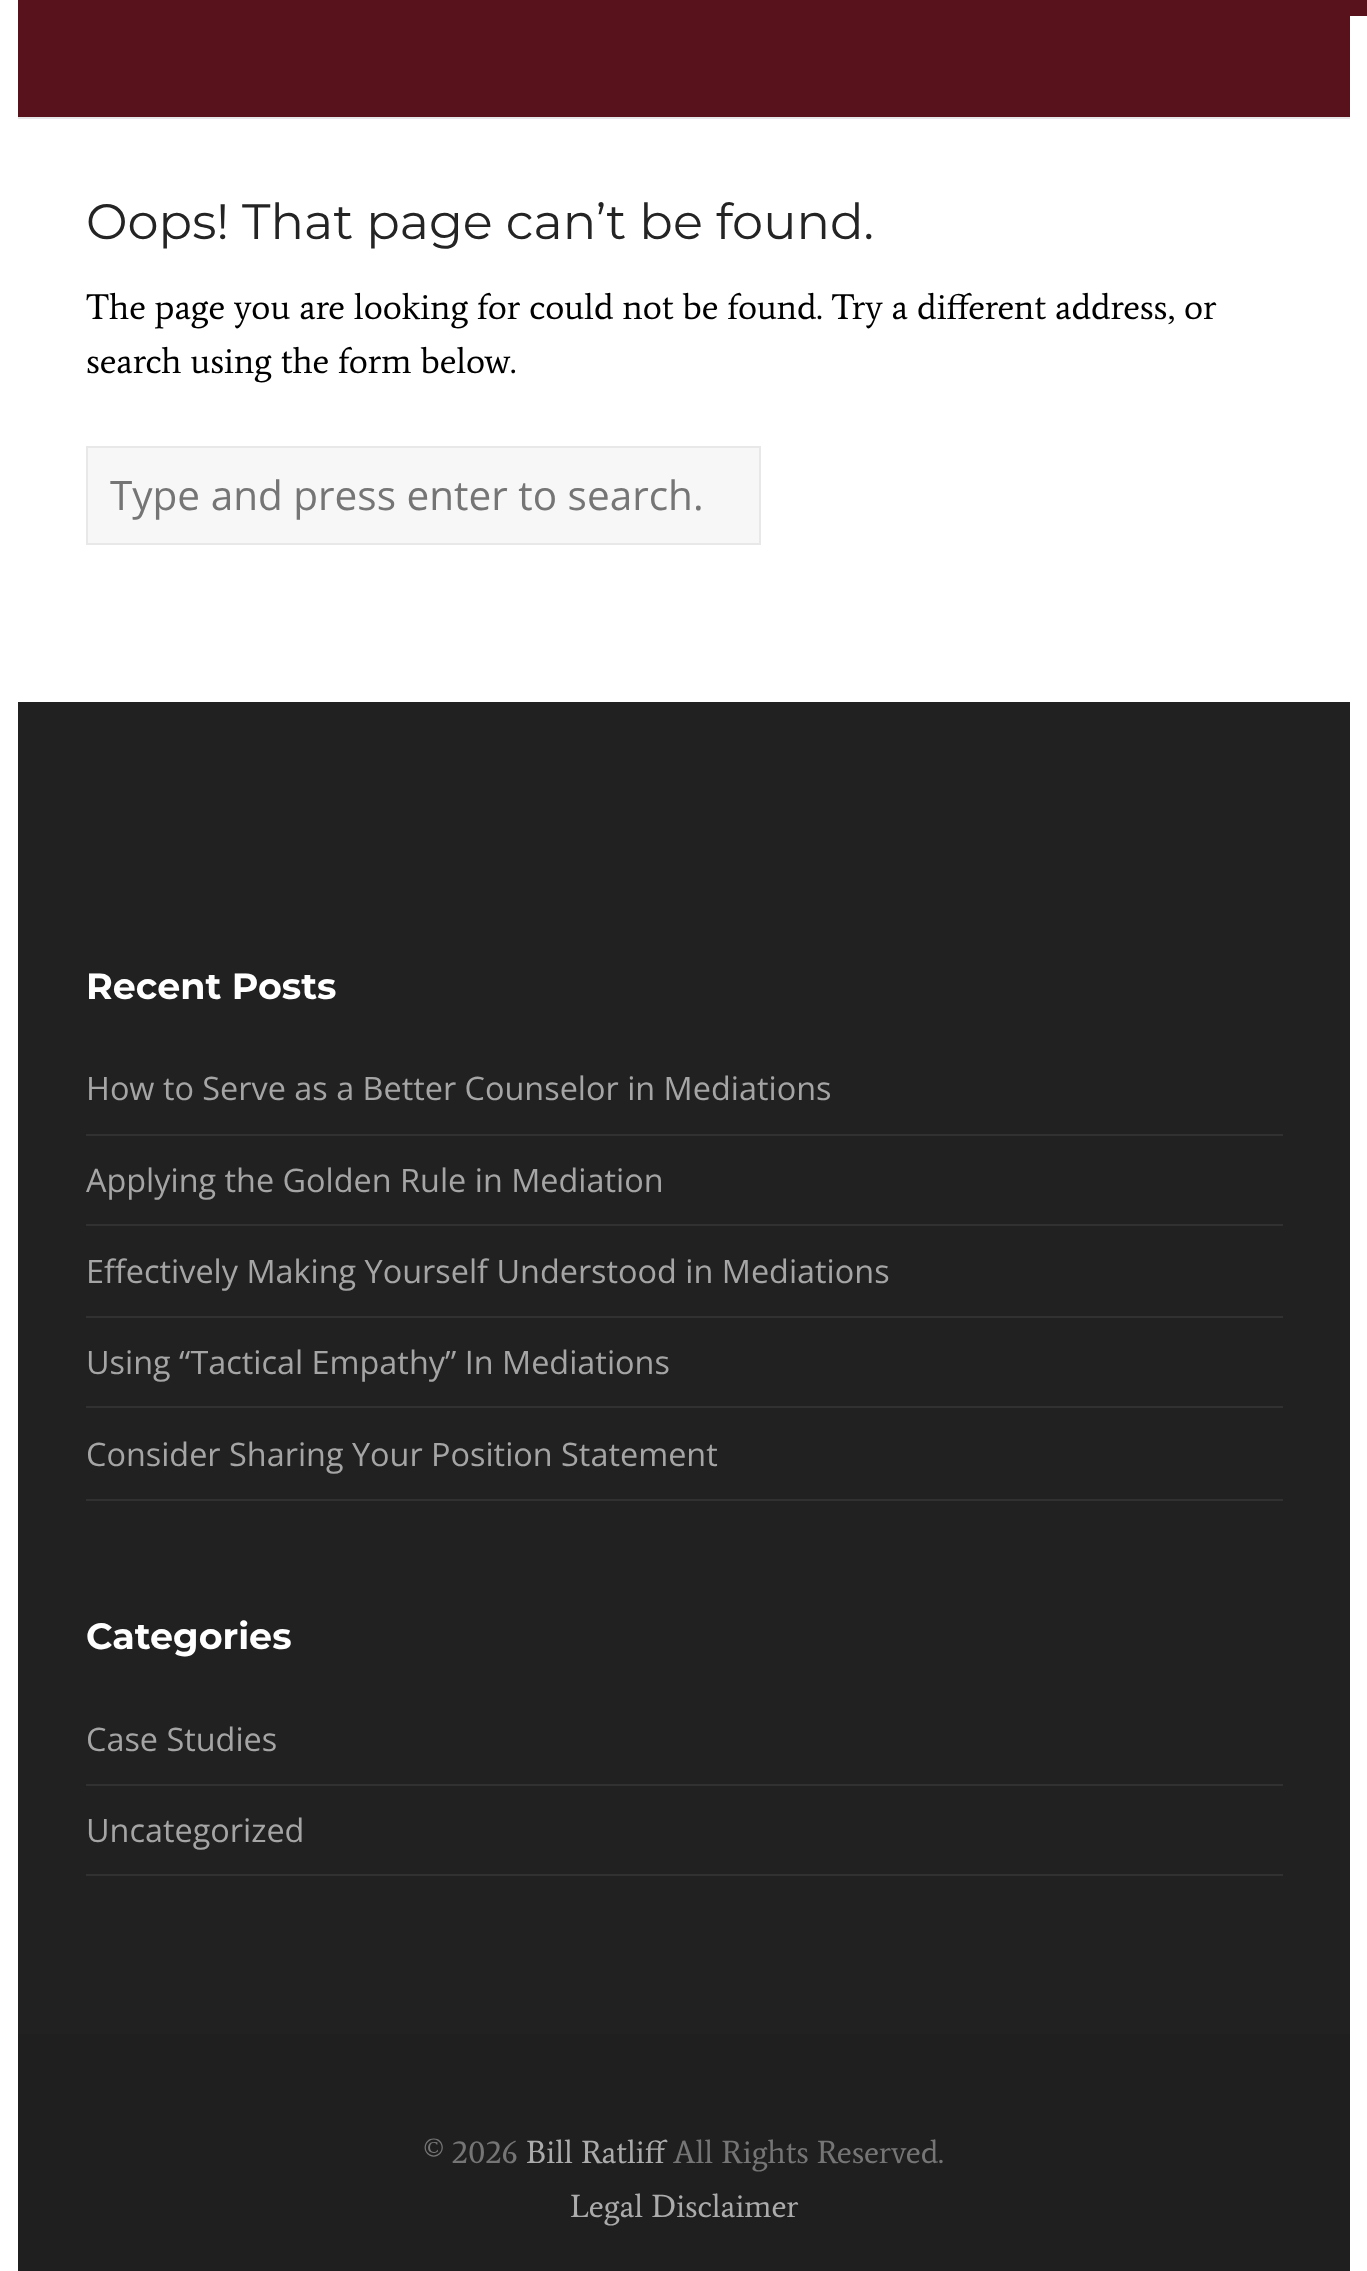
<!DOCTYPE html>
<meta charset="utf-8">
<style>body { margin: 0 } canvas { display: block }</style>
<canvas id="canvas" width="1367" height="2271"></canvas>
<script>
window.onload = function () {
    const canvas = document.getElementById('canvas');
    const context = canvas.getContext('2d');
    context.miterLimit = 4;
    context.fontKerning = 'normal';

    context.fillStyle = 'rgb(255, 255, 255)';
    context.fillRect(0, 0, 1367, 2271);
    context.fillStyle = 'rgb(88, 18, 28)';
    context.fillRect(18, 0, 1349, 16);
    context.fillStyle = 'rgb(230, 230, 230)';
    context.fillRect(18, 117, 1332, 2);
    context.fillStyle = 'rgb(88, 18, 28)';
    context.fillRect(18, 16, 1332, 101);
    context.fillStyle = 'rgb(247, 247, 247)';
    context.beginPath();
    context.rect(87, 447, 673, 97);
    context.fill();
    context.strokeStyle = 'rgb(232, 232, 232)';
    context.lineWidth = 2;
    context.stroke();
    context.fillStyle = 'rgb(33, 33, 33)';
    context.fillRect(18, 702, 1332, 1332);
    context.fillStyle = 'rgb(49, 49, 49)';
    context.fillRect(86, 1134, 1197, 2);
    context.fillRect(86, 1224, 1197, 2);
    context.fillRect(86, 1316, 1197, 2);
    context.fillRect(86, 1406, 1197, 2);
    context.fillRect(86, 1499, 1197, 2);
    context.fillRect(86, 1784, 1197, 2);
    context.fillRect(86, 1874, 1197, 2);
    context.fillStyle = 'rgb(31, 31, 31)';
    context.fillRect(18, 2034, 1332, 237);
    context.font = '100 49.5px Montserrat';
    context.fillStyle = 'rgb(36, 36, 36)';
    context.fillText('Oops! That page can’t be found.', 86, 239);
    context.font = '36px Average';
    context.fillStyle = 'rgb(0, 0, 0)';
    context.fillText('The page you are looking for could not be found. Try a different address, or', 86, 319);
    context.fillText('search using the form below.', 86, 373);
    context.font = '40.5px Open Sans';
    context.fillStyle = 'rgb(117, 117, 117)';
    context.fillText('Type and press enter to search.', 110, 510);
    context.font = 'bold 36.5px Montserrat';
    context.fillStyle = 'rgb(255, 255, 255)';
    context.fillText('Recent Posts', 86, 999);
    context.font = '32.4px Open Sans';
    context.fillStyle = 'rgb(165, 165, 165)';
    context.fillText('How to Serve as a Better Counselor in Mediations', 86, 1100);
    context.fillText('Applying the Golden Rule in Mediation', 86, 1192);
    context.fillText('Effectively Making Yourself Understood in Mediations', 86, 1283);
    context.fillText('Using “Tactical Empathy” In Mediations', 86, 1374);
    context.fillText('Consider Sharing Your Position Statement', 86, 1466);
    context.font = 'bold 36.5px Montserrat';
    context.fillStyle = 'rgb(255, 255, 255)';
    context.fillText('Categories', 86, 1649);
    context.font = '32.4px Open Sans';
    context.fillStyle = 'rgb(165, 165, 165)';
    context.fillText('Case Studies', 86, 1751);
    context.fillText('Uncategorized', 86, 1842);
    context.font = '32.4px Average';
    context.fillStyle = 'rgb(117, 117, 117)';
    context.fillText('© 2026', 424, 2163);
    context.fillStyle = 'rgb(171, 171, 172)';
    context.fillText('Bill Ratliff', 526, 2163);
    context.fillStyle = 'rgb(117, 117, 117)';
    context.fillText('All Rights Reserved.', 673, 2163);
    context.fillStyle = 'rgb(171, 171, 172)';
    context.fillText('Legal Disclaimer', 570, 2217);
};
</script>
